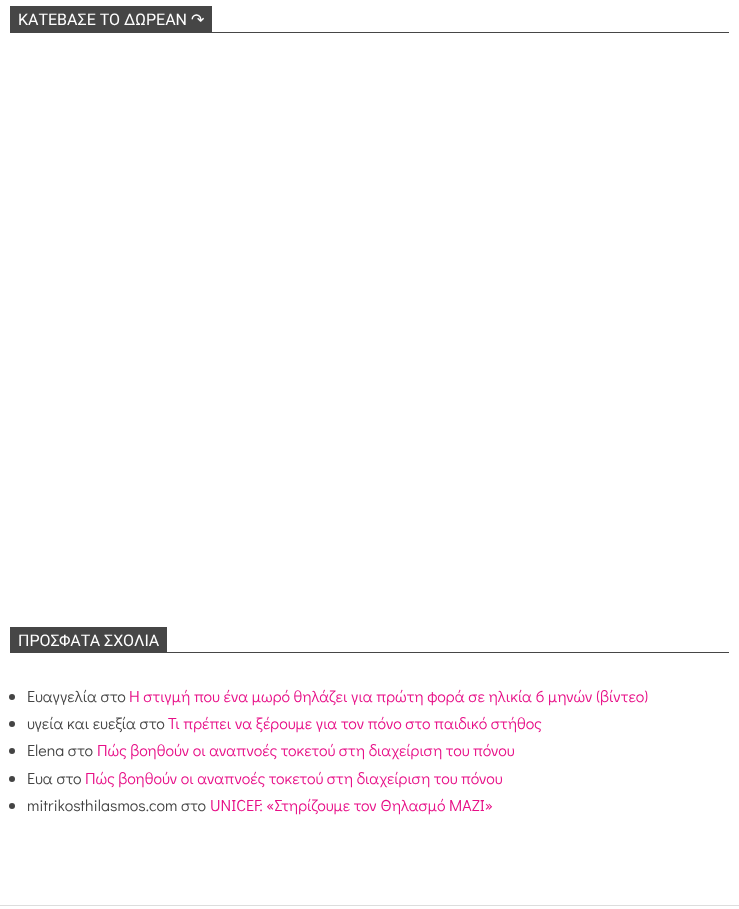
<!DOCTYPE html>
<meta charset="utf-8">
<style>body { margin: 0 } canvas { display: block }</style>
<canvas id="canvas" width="739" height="909"></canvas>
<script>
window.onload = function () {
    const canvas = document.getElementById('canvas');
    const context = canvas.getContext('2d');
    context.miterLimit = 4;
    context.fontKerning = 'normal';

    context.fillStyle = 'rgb(255, 255, 255)';
    context.fillRect(0, 0, 739, 909);
    context.fillStyle = 'rgb(70, 70, 70)';
    context.fillRect(10, 6, 202, 26);
    context.fillRect(10, 32, 719, 1);
    context.fillRect(10, 627, 157, 25);
    context.fillRect(10, 652, 719, 1);
    context.fillStyle = 'rgb(68, 68, 68)';
    context.beginPath();
    context.arc(12, 697, 3, 0, 2 * Math.PI);
    context.fill();
    context.beginPath();
    context.arc(12, 724, 3, 0, 2 * Math.PI);
    context.fill();
    context.beginPath();
    context.arc(12, 751, 3, 0, 2 * Math.PI);
    context.fill();
    context.beginPath();
    context.arc(12, 779, 3, 0, 2 * Math.PI);
    context.fill();
    context.beginPath();
    context.arc(12, 806, 3, 0, 2 * Math.PI);
    context.fill();
    context.fillStyle = 'rgb(221, 221, 221)';
    context.fillRect(0, 905, 739, 1);
    context.font = '16px Roboto';
    context.fillStyle = 'rgb(255, 255, 255)';
    context.fillText('ΚΑΤΕΒΑΣΕ ΤΟ ΔΩΡΕΑΝ', 18, 25);
    context.font = '16px DejaVu Sans';
    context.fillText('↷', 191, 25);
    context.font = '16px Roboto';
    context.fillText('ΠΡΟΣΦΑΤΑ ΣΧΟΛΙΑ', 18, 646);
    context.font = '16px Didact Gothic';
    context.fillStyle = 'rgb(68, 68, 68)';
    context.fillText('Ευαγγελία στο', 27, 702);
    context.fillStyle = 'rgb(231, 15, 135)';
    context.fillText('Η στιγμή που ένα μωρό θηλάζει για πρώτη φορά σε ηλικία 6 μηνών (βίντεο)', 129, 702);
    context.fillStyle = 'rgb(68, 68, 68)';
    context.fillText('υγεία και ευεξία στο', 27, 729);
    context.fillStyle = 'rgb(231, 15, 135)';
    context.fillText('Τι πρέπει να ξέρουμε για τον πόνο στο παιδικό στήθος', 168, 729);
    context.fillStyle = 'rgb(68, 68, 68)';
    context.fillText('Elena στο', 27, 756);
    context.fillStyle = 'rgb(231, 15, 135)';
    context.fillText('Πώς βοηθούν οι αναπνοές τοκετού στη διαχείριση του πόνου', 97, 756);
    context.fillStyle = 'rgb(68, 68, 68)';
    context.fillText('Ευα στο', 27, 784);
    context.fillStyle = 'rgb(231, 15, 135)';
    context.fillText('Πώς βοηθούν οι αναπνοές τοκετού στη διαχείριση του πόνου', 85, 784);
    context.fillStyle = 'rgb(68, 68, 68)';
    context.fillText('mitrikosthilasmos.com στο', 27, 811);
    context.fillStyle = 'rgb(231, 15, 135)';
    context.fillText('UNICEF: «Στηρίζουμε τον Θηλασμό ΜΑΖΙ»', 210, 811);
};
</script>
